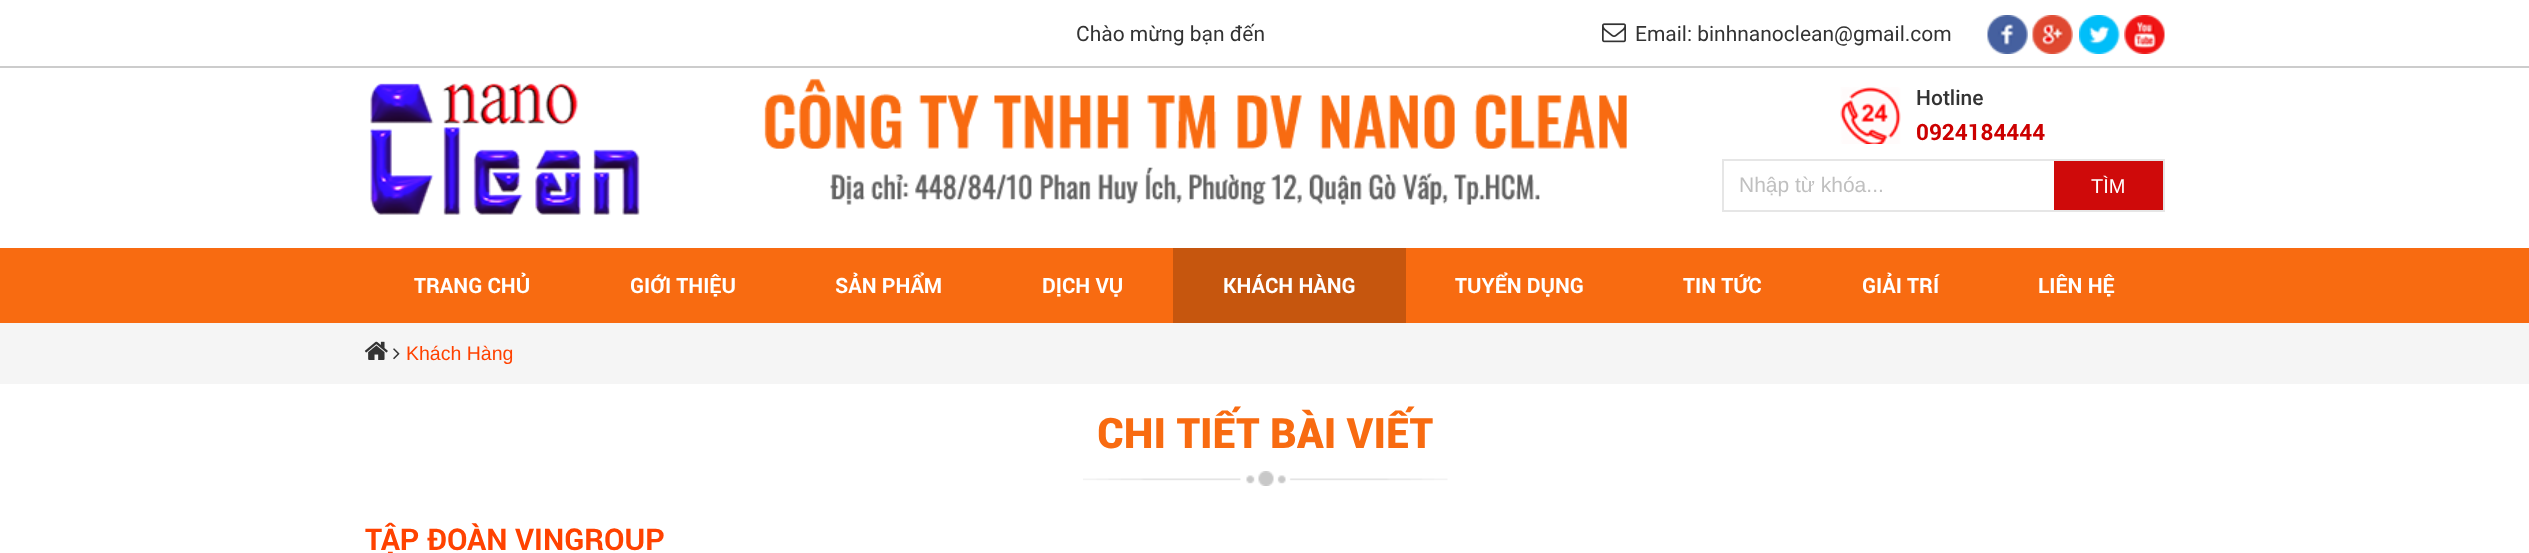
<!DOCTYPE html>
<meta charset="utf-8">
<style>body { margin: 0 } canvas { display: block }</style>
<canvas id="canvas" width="2529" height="553"></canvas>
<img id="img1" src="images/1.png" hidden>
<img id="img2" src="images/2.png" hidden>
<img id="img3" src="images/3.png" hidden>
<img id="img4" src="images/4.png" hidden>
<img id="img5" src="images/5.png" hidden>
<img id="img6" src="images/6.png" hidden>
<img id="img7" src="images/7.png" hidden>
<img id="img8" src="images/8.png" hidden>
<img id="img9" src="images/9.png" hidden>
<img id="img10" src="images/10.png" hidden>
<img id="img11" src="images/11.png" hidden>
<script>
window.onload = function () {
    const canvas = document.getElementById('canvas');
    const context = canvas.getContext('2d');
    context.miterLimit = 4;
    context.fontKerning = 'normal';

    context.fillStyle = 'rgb(255, 255, 255)';
    context.fillRect(0, 0, 2529, 553);
    context.fillStyle = 'rgb(204, 204, 204)';
    context.fillRect(0, 66, 2529, 2);
    context.drawImage(document.getElementById('img1'), 1602, 23, 24, 20);
    context.drawImage(document.getElementById('img2'), 1987, 15, 41, 39);
    context.drawImage(document.getElementById('img3'), 2032, 15, 41, 39);
    context.drawImage(document.getElementById('img4'), 2079, 15, 41, 39);
    context.drawImage(document.getElementById('img5'), 2124, 15, 41, 39);
    context.drawImage(document.getElementById('img6'), 370, 83, 270, 132);
    context.drawImage(document.getElementById('img7'), 764, 78, 863, 127);
    context.drawImage(document.getElementById('img8'), 1840, 87, 61, 57);
    context.strokeStyle = 'rgb(230, 230, 230)';
    context.lineWidth = 2;
    context.strokeRect(1723, 160, 441, 51);
    context.fillStyle = 'rgb(207, 10, 10)';
    context.fillRect(2054, 161, 109, 49);
    context.fillStyle = 'rgb(248, 107, 17)';
    context.fillRect(0, 248, 2529, 75);
    context.fillStyle = 'rgb(198, 86, 14)';
    context.fillRect(1173, 248, 233, 75);
    context.fillStyle = 'rgb(245, 245, 245)';
    context.fillRect(0, 323, 2529, 61);
    context.drawImage(document.getElementById('img9'), 364, 341, 24, 19);
    context.drawImage(document.getElementById('img10'), 393, 348, 7, 12);
    context.drawImage(document.getElementById('img11'), 1083, 471, 365, 15);
    context.font = '21px Roboto';
    context.fillStyle = 'rgb(51, 51, 51)';
    context.fillText('Chào mừng bạn đến', 1076, 41);
    context.fillText('Email: binhnanoclean@gmail.com', 1635, 41);
    context.font = '500 21px Roboto';
    context.fillText('Hotline', 1916, 105);
    context.font = 'bold 22.5px Roboto';
    context.fillStyle = 'rgb(204, 0, 0)';
    context.fillText('0924184444', 1916, 140);
    context.font = '21px Liberation Sans';
    context.fillStyle = 'rgb(192, 192, 192)';
    context.fillText('Nhập từ khóa...', 1739, 192);
    context.font = '20px Liberation Sans';
    context.fillStyle = 'rgb(255, 255, 255)';
    context.fillText('TÌM', 2091, 193);
    context.font = 'bold 21px Roboto';
    context.fillText('TRANG CHỦ', 414, 293);
    context.fillText('GIỚI THIỆU', 630, 293);
    context.fillText('SẢN PHẨM', 835, 293);
    context.fillText('DỊCH VỤ', 1042, 293);
    context.fillText('KHÁCH HÀNG', 1223, 293);
    context.fillText('TUYỂN DỤNG', 1455, 293);
    context.fillText('TIN TỨC', 1683, 293);
    context.fillText('GIẢI TRÍ', 1862, 293);
    context.fillText('LIÊN HỆ', 2038, 293);
    context.font = '19.5px Liberation Sans';
    context.fillStyle = 'rgb(255, 66, 0)';
    context.fillText('Khách Hàng', 406, 360);
    context.font = '900 42px Roboto';
    context.fillStyle = 'rgb(248, 107, 17)';
    context.fillText('CHI TIẾT BÀI VIẾT', 1097, 448);
    context.font = 'bold 30px Roboto';
    context.fillStyle = 'rgb(255, 66, 0)';
    context.fillText('TẬP ĐOÀN VINGROUP', 365, 550);
};
</script>
